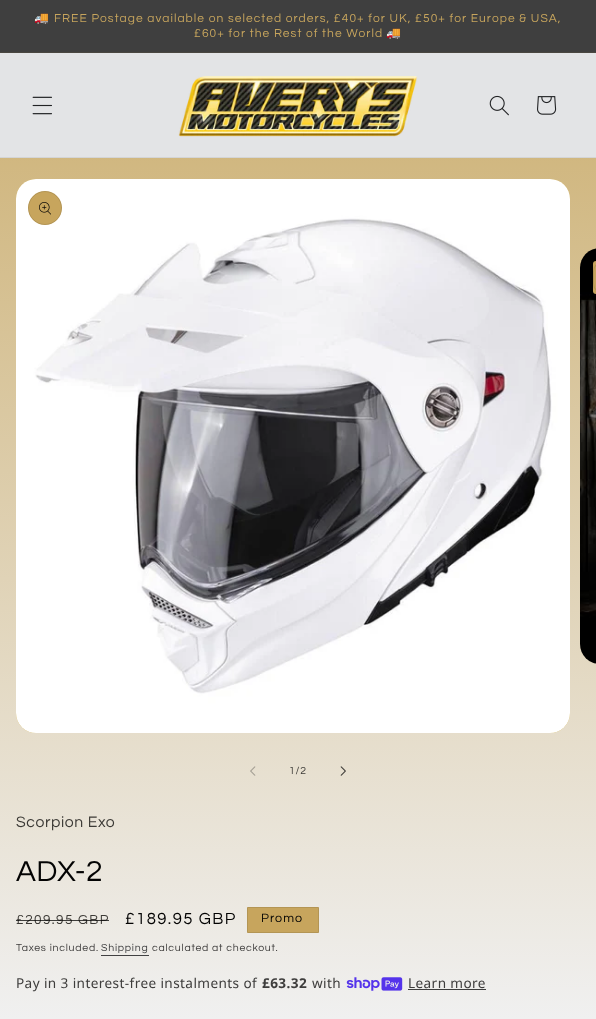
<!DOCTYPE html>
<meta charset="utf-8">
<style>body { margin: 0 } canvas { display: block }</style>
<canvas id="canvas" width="596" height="1019"></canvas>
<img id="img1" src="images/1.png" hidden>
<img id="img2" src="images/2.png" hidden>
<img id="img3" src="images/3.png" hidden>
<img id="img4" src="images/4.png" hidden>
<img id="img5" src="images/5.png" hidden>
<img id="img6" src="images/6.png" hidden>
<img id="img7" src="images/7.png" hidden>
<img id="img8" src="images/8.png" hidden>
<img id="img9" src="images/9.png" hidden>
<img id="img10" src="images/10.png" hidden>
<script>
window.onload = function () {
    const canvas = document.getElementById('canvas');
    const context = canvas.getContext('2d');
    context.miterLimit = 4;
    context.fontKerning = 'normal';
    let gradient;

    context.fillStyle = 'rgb(255, 255, 255)';
    context.fillRect(0, 0, 596, 1019);
    context.fillStyle = 'rgb(63, 63, 63)';
    context.fillRect(0, 0, 596, 52);
    context.fillStyle = 'rgb(74, 71, 65)';
    context.fillRect(0, 52, 596, 1);
    context.fillStyle = 'rgb(227, 228, 230)';
    context.fillRect(0, 53, 596, 104);
    context.fillStyle = 'rgb(212, 213, 215)';
    context.fillRect(0, 157, 596, 1);
    context.drawImage(document.getElementById('img1'), 32, 96, 20, 19);
    context.drawImage(document.getElementById('img2'), 178, 76, 240, 61);
    context.drawImage(document.getElementById('img3'), 489, 95, 20, 21);
    context.drawImage(document.getElementById('img4'), 537, 96, 20, 19);
    gradient = context.createLinearGradient(298, 0, 298, 1019);
    gradient.addColorStop(0, 'rgb(203, 173, 108)');
    gradient.addColorStop(1, 'rgb(240, 240, 240)');
    context.fillStyle = gradient;
    context.fillRect(0, 158, 596, 861);
    context.fillStyle = 'rgb(199, 165, 93)';
    context.beginPath();
    context.roundRect(16, 179, 554, 554, 20);
    context.fill();
    gradient = context.createLinearGradient(298, 0, 298, 1019);
    gradient.addColorStop(0, 'rgba(199, 165, 93, 0.9)');
    gradient.addColorStop(1, 'rgba(249, 234, 32, 0.03)');
    context.fillStyle = gradient;
    context.beginPath();
    context.roundRect(16, 179, 554, 554, 20);
    context.fill();
    context.drawImage(document.getElementById('img5'), 16, 179, 554, 554);
    context.fillStyle = 'rgb(199, 165, 93)';
    context.beginPath();
    context.arc(45, 208, 17, 0, 2 * Math.PI);
    context.fill();
    context.beginPath();
    context.arc(45, 208, 16.5, 0, 2 * Math.PI);
    context.strokeStyle = 'rgba(3, 3, 3, 0.1)';
    context.stroke();
    context.drawImage(document.getElementById('img6'), 39, 202, 12, 13);
    context.drawImage(document.getElementById('img7'), 580, 248, 16, 416);
    context.beginPath();
    context.roundRect(593, 261, 3, 33, [16.5, 0, 0, 16.5]);
    context.fill();
    context.beginPath();
    context.roundRect(593.5, 261.5, 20, 32, 16);
    context.stroke();
    context.drawImage(document.getElementById('img8'), 250, 766, 6, 10);
    context.drawImage(document.getElementById('img9'), 340, 766, 6, 10);
    context.beginPath();
    context.rect(247.5, 907.5, 71, 25);
    context.fill();
    context.strokeStyle = 'rgb(179, 149, 84)';
    context.stroke();
    context.fillStyle = 'rgb(65, 65, 66)';
    context.fillRect(101, 955, 48, 1);
    context.drawImage(document.getElementById('img10'), 346, 977, 57, 14);
    context.fillStyle = 'rgb(62, 62, 61)';
    context.fillRect(408, 989, 78, 1);
    context.letterSpacing = '1.05px';
    context.font = '12px Noto Color Emoji';
    context.fillStyle = 'rgb(199, 165, 93)';
    context.fillText('🚚', 34, 22);
    context.font = '12px Questrial';
    context.fillText('FREE Postage available on selected orders, £40+ for UK, £50+ for Europe & USA,', 54, 22);
    context.fillText('£60+ for the Rest of the World', 194, 37);
    context.font = '12px Noto Color Emoji';
    context.fillText('🚚', 386, 37);
    context.letterSpacing = '0.75px';
    context.font = '10.5px Questrial';
    context.fillStyle = 'rgb(60, 58, 54)';
    context.fillText('1/2', 289, 774);
    context.letterSpacing = '0.6px';
    context.font = '15.75px Questrial';
    context.fillText('Scorpion Exo', 16, 827);
    context.letterSpacing = '0.5px';
    context.font = '30px Questrial';
    context.fillStyle = 'rgb(3, 3, 3)';
    context.fillText('ADX-2', 16, 881);
    context.letterSpacing = '1.4px';
    context.font = '13.6px Questrial';
    context.fillStyle = 'rgb(60, 58, 54)';
    context.fillText('£209.95 GBP', 16, 924);
    context.fillStyle = 'rgba(3, 3, 3, 0.75)';
    context.fillRect(16, 920, 93, 1);
    context.font = '16.75px Questrial';
    context.fillStyle = 'rgb(3, 3, 3)';
    context.fillText('£189.95 GBP', 125, 924);
    context.letterSpacing = '1.05px';
    context.font = '12.5px Questrial';
    context.fillText('Promo', 261, 922);
    context.letterSpacing = '0.75px';
    context.font = '10.5px Questrial';
    context.fillStyle = 'rgb(62, 61, 60)';
    context.fillText('Taxes included.', 16, 951);
    context.fillStyle = 'rgb(64, 65, 66)';
    context.fillText('Shipping', 101, 951);
    context.fillStyle = 'rgb(62, 61, 60)';
    context.fillText('calculated at checkout.', 152, 951);
    context.letterSpacing = '0.4px';
    context.font = '13.6px Noto Sans';
    context.fillText('Pay in 3 interest-free instalments of', 16, 988);
    context.font = 'bold 13.6px Noto Sans';
    context.fillText('£63.32', 262, 988);
    context.font = '13.6px Noto Sans';
    context.fillText('with', 312, 988);
    context.fillText('Learn more', 408, 988);
};
</script>
